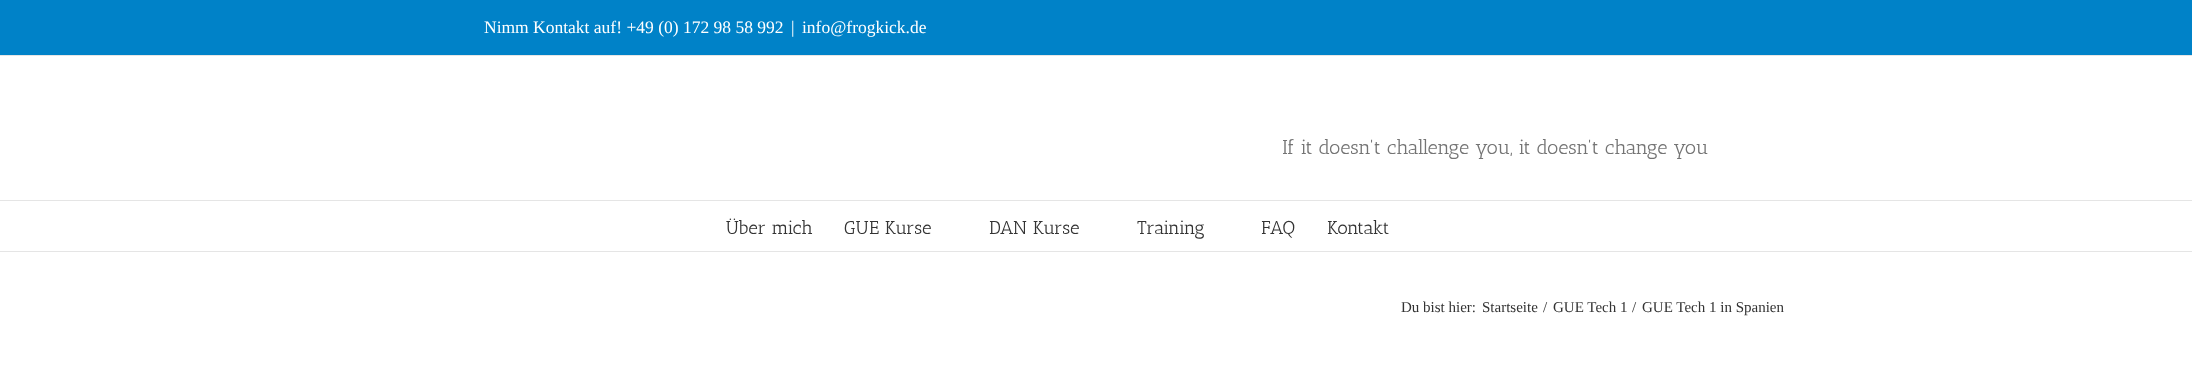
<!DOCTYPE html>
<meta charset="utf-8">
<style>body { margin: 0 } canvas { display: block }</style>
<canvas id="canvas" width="2192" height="390"></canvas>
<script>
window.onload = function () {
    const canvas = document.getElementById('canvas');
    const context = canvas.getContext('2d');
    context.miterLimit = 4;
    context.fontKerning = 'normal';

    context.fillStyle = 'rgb(255, 255, 255)';
    context.fillRect(0, 0, 2192, 390);
    context.fillStyle = 'rgb(0, 130, 200)';
    context.fillRect(0, 0, 2192, 55);
    context.fillStyle = 'rgb(229, 229, 229)';
    context.fillRect(0, 55, 2192, 1);
    context.fillRect(0, 200, 2192, 1);
    context.fillRect(0, 251, 2192, 1);
    context.font = '17.5px Liberation Serif';
    context.fillStyle = 'rgb(255, 255, 255)';
    context.fillText('Nimm Kontakt auf! +49 (0) 172 98 58 992', 484, 33);
    context.fillText('|', 791, 33);
    context.fillText('info@frogkick.de', 802, 33);
    context.font = '20px Antic Slab';
    context.fillStyle = 'rgb(116, 116, 116)';
    context.fillText('If it doesn\'t challenge you, it doesn\'t change you', 1282, 154);
    context.font = '18.75px Antic Slab';
    context.fillStyle = 'rgb(51, 51, 51)';
    context.fillText('Über mich', 726, 234);
    context.fillText('GUE Kurse', 844, 234);
    context.fillText('DAN Kurse', 989, 234);
    context.fillText('Training', 1137, 234);
    context.fillText('FAQ', 1261, 234);
    context.fillText('Kontakt', 1327, 234);
    context.font = '15px Liberation Serif';
    context.fillText('Du bist hier:', 1401, 312);
    context.fillText('Startseite', 1482, 312);
    context.fillText('/', 1543, 312);
    context.fillText('GUE Tech 1', 1553, 312);
    context.fillText('/', 1632, 312);
    context.fillText('GUE Tech 1 in Spanien', 1642, 312);
};
</script>
